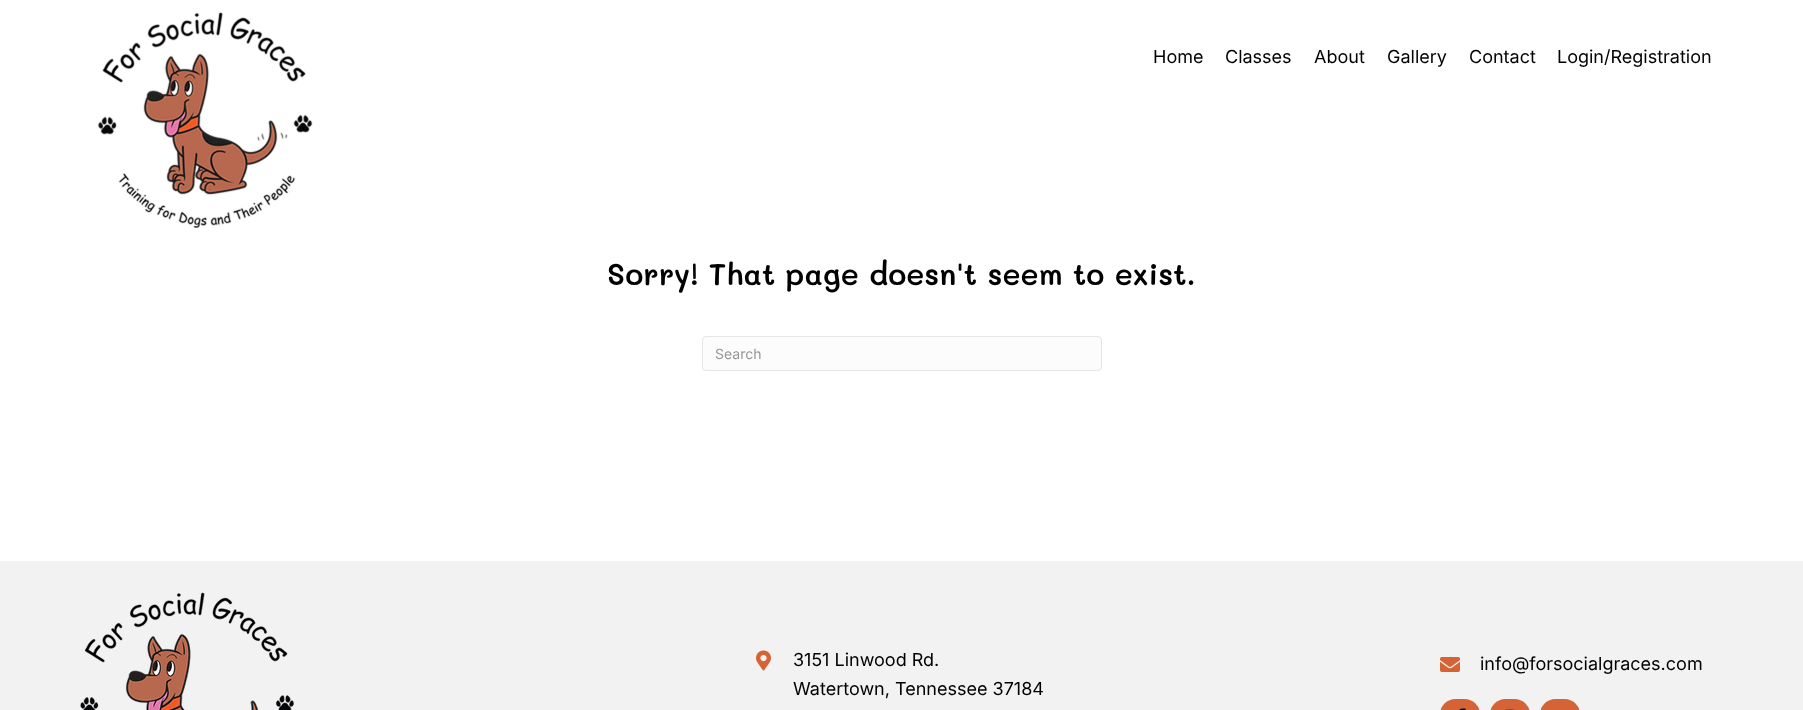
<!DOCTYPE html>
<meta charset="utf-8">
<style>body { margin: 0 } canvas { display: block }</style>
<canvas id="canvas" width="1803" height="710"></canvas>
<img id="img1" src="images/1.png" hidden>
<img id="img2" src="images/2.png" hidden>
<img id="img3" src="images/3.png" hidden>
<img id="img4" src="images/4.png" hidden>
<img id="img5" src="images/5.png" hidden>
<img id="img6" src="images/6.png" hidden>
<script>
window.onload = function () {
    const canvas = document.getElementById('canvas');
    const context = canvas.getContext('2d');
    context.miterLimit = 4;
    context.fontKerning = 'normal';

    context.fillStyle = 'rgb(242, 242, 242)';
    context.fillRect(0, 0, 1803, 710);
    context.fillStyle = 'rgb(255, 255, 255)';
    context.fillRect(0, 0, 1803, 561);
    context.drawImage(document.getElementById('img1'), 98, 12, 215, 216);
    context.fillStyle = 'rgb(252, 252, 252)';
    context.beginPath();
    context.roundRect(702.5, 336.5, 399, 34, 3.5);
    context.fill();
    context.strokeStyle = 'rgb(230, 230, 230)';
    context.stroke();
    context.drawImage(document.getElementById('img2'), 80, 592, 214, 118);
    context.drawImage(document.getElementById('img3'), 756, 650, 15, 21);
    context.drawImage(document.getElementById('img4'), 1440, 657, 20, 15);
    context.fillStyle = 'rgb(213, 99, 53)';
    context.beginPath();
    context.roundRect(1440, 699, 40, 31, 20);
    context.fill();
    context.drawImage(document.getElementById('img5'), 1459, 708, 7, 2);
    context.beginPath();
    context.roundRect(1490, 699, 40, 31, 20);
    context.fill();
    context.drawImage(document.getElementById('img6'), 1505, 709, 10, 1);
    context.beginPath();
    context.roundRect(1540, 699, 40, 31, 20);
    context.fill();
    context.font = '18px Inter';
    context.fillStyle = 'rgb(0, 0, 0)';
    context.fillText('Home', 1153, 63);
    context.fillText('Classes', 1225, 63);
    context.fillText('About', 1314, 63);
    context.fillText('Gallery', 1387, 63);
    context.fillText('Contact', 1469, 63);
    context.fillText('Login/Registration', 1557, 63);
    context.font = '600 30px Mali';
    context.fillText('Sorry! That page doesn\'t seem to exist.', 607, 285);
    context.font = '14px Inter';
    context.fillStyle = 'rgb(151, 151, 151)';
    context.fillText('Search', 715, 359);
    context.font = '18px Inter';
    context.fillStyle = 'rgb(0, 0, 0)';
    context.fillText('3151 Linwood Rd.', 793, 666);
    context.fillText('Watertown, Tennessee 37184', 793, 695);
    context.fillText('info@forsocialgraces.com', 1480, 670);
};
</script>
